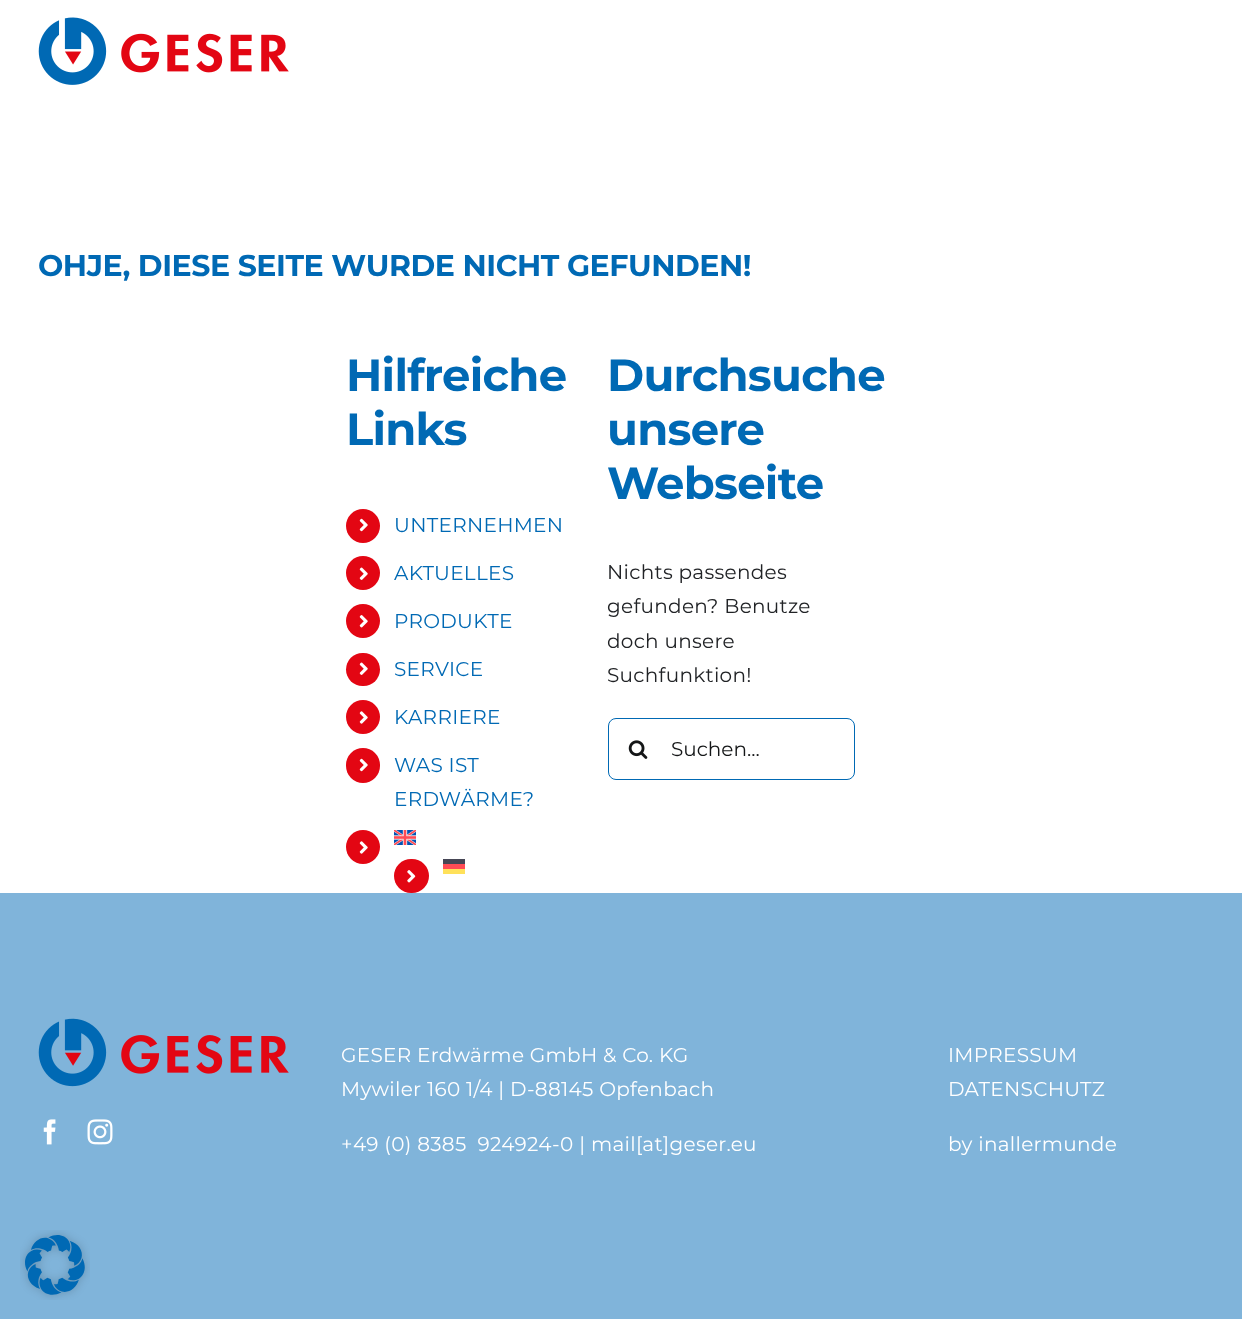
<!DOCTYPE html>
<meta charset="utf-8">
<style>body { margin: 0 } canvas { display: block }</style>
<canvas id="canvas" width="1242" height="1319"></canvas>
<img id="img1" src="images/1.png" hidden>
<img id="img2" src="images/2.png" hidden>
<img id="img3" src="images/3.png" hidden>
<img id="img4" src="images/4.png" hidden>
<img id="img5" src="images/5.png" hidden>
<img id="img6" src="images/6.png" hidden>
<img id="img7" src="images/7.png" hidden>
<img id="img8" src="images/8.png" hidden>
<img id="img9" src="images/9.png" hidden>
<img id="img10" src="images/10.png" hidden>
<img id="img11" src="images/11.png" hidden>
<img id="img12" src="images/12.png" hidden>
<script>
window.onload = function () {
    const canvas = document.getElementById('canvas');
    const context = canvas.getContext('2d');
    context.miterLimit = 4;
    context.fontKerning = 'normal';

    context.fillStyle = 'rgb(255, 255, 255)';
    context.fillRect(0, 0, 1242, 1319);
    context.drawImage(document.getElementById('img1'), 38, 17, 251, 68);
    context.fillStyle = 'rgb(227, 6, 19)';
    context.beginPath();
    context.arc(363, 526, 17, 0, 2 * Math.PI);
    context.fill();
    context.drawImage(document.getElementById('img2'), 359, 518, 9, 14);
    context.beginPath();
    context.arc(363, 573, 17, 0, 2 * Math.PI);
    context.fill();
    context.drawImage(document.getElementById('img3'), 359, 567, 9, 13);
    context.beginPath();
    context.arc(363, 621, 17, 0, 2 * Math.PI);
    context.fill();
    context.drawImage(document.getElementById('img4'), 359, 615, 9, 13);
    context.beginPath();
    context.roundRect(346, 653, 34, 33, 16.5);
    context.fill();
    context.drawImage(document.getElementById('img3'), 359, 662, 9, 13);
    context.beginPath();
    context.arc(363, 717, 17, 0, 2 * Math.PI);
    context.fill();
    context.drawImage(document.getElementById('img5'), 359, 711, 9, 13);
    context.beginPath();
    context.roundRect(346, 748, 34, 35, 17);
    context.fill();
    context.drawImage(document.getElementById('img2'), 359, 758, 9, 14);
    context.beginPath();
    context.arc(363, 847, 17, 0, 2 * Math.PI);
    context.fill();
    context.drawImage(document.getElementById('img5'), 359, 841, 9, 13);
    context.drawImage(document.getElementById('img6'), 394, 830, 22, 15);
    context.beginPath();
    context.roundRect(394, 859, 35, 34, 17);
    context.fill();
    context.drawImage(document.getElementById('img7'), 407, 870, 9, 13);
    context.fillStyle = 'rgb(255, 75, 85)';
    context.fillRect(443, 864, 22, 5);
    context.fillStyle = 'rgb(255, 225, 90)';
    context.fillRect(443, 869, 22, 5);
    context.fillStyle = 'rgb(70, 70, 85)';
    context.fillRect(443, 859, 22, 5);
    context.beginPath();
    context.roundRect(608.5, 718.5, 246, 61, 7.5);
    context.strokeStyle = 'rgb(0, 105, 180)';
    context.stroke();
    context.drawImage(document.getElementById('img8'), 628, 740, 20, 19);
    context.fillStyle = 'rgb(128, 180, 218)';
    context.fillRect(0, 893, 1242, 426);
    context.drawImage(document.getElementById('img9'), 38, 1018, 251, 69);
    context.drawImage(document.getElementById('img10'), 43, 1119, 13, 26);
    context.drawImage(document.getElementById('img11'), 87, 1119, 26, 26);
    context.drawImage(document.getElementById('img12'), 20, 1230, 70, 70);
    context.letterSpacing = '-0.45px';
    context.font = 'bold 30px Montserrat';
    context.fillStyle = 'rgb(0, 105, 180)';
    context.fillText('OHJE, DIESE SEITE WURDE NICHT GEFUNDEN!', 38, 276);
    context.letterSpacing = '-0.75px';
    context.font = 'bold 45px Montserrat';
    context.fillText('Hilfreiche', 346, 391);
    context.fillText('Links', 346, 445);
    context.letterSpacing = '0.3px';
    context.font = '20px Montserrat';
    context.fillText('UNTERNEHMEN', 394, 532);
    context.fillText('AKTUELLES', 394, 580);
    context.fillText('PRODUKTE', 394, 628);
    context.fillText('SERVICE', 394, 676);
    context.fillText('KARRIERE', 394, 724);
    context.fillText('WAS IST', 394, 772);
    context.fillText('ERDWÄRME?', 394, 806);
    context.letterSpacing = '-0.75px';
    context.font = 'bold 45px Montserrat';
    context.fillText('Durchsuche', 607, 391);
    context.fillText('unsere', 607, 445);
    context.fillText('Webseite', 607, 499);
    context.letterSpacing = '0.3px';
    context.font = '20px Montserrat';
    context.fillStyle = 'rgb(33, 35, 38)';
    context.fillText('Nichts passendes', 607, 579);
    context.fillText('gefunden? Benutze', 607, 613);
    context.fillText('doch unsere', 607, 648);
    context.fillText('Suchfunktion!', 607, 682);
    context.letterSpacing = '0px';
    context.fillStyle = 'rgb(20, 22, 23)';
    context.fillText('Suchen...', 671, 756);
    context.letterSpacing = '0.3px';
    context.fillStyle = 'rgb(255, 255, 255)';
    context.fillText('GESER Erdwärme GmbH & Co. KG', 341, 1062);
    context.fillText('Mywiler 160 1/4 | D-88145 Opfenbach', 341, 1096);
    context.fillText('+49 (0) 8385  924924-0 | mail[at]geser.eu', 341, 1151);
    context.fillText('IMPRESSUM', 948, 1062);
    context.fillText('DATENSCHUTZ', 948, 1096);
    context.fillText('by inallermunde', 948, 1151);
};
</script>
